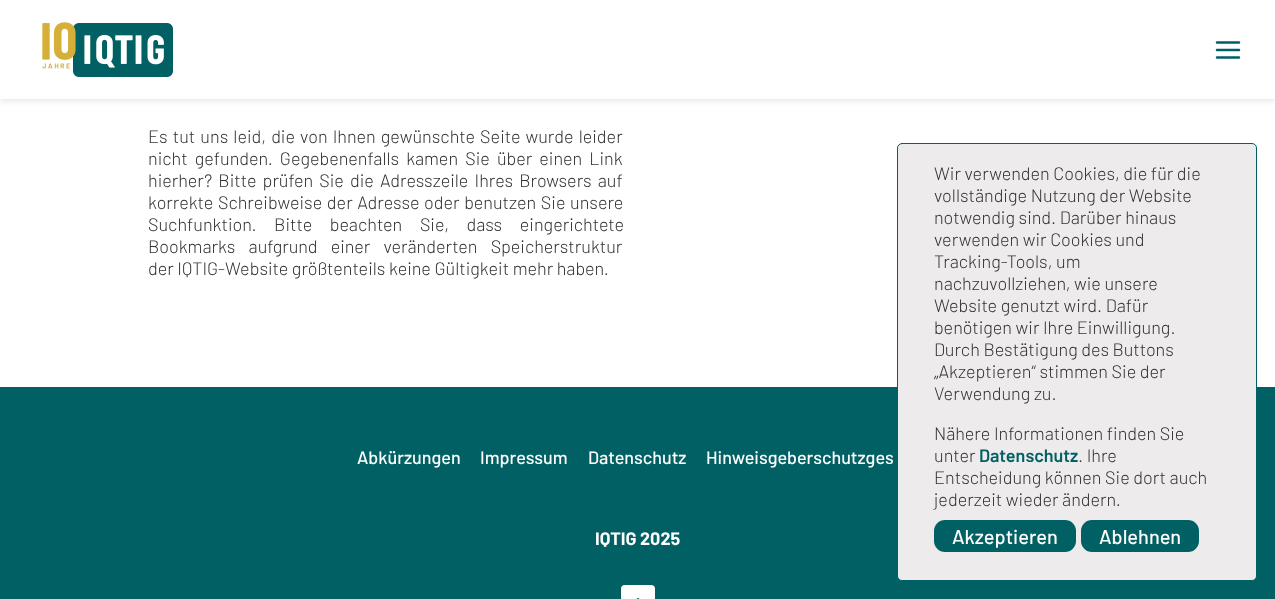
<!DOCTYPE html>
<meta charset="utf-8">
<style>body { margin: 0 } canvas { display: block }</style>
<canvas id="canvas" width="1275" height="599"></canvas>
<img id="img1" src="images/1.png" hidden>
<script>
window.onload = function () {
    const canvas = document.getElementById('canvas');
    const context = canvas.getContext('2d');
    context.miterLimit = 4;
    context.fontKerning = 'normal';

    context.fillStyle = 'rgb(255, 255, 255)';
    context.fillRect(0, 0, 1275, 599);
    context.fillStyle = 'rgba(0, 0, 0, 0.08)';
    context.filter = 'blur(2.5px)';
    context.beginPath();
    context.rect(0, 3, 1275, 99);
    context.fill();
    context.filter = 'none';
    context.fillStyle = 'rgb(255, 255, 255)';
    context.fillRect(0, 0, 1275, 99);
    context.drawImage(document.getElementById('img1'), 42, 22, 131, 55);
    context.beginPath();
    context.moveTo(1217, 50);
    context.lineTo(1239, 50);
    context.moveTo(1217, 42.5);
    context.lineTo(1239, 42.5);
    context.moveTo(1217, 57.5);
    context.lineTo(1239, 57.5);
    context.strokeStyle = 'rgb(0, 96, 100)';
    context.lineWidth = 2.5;
    context.lineCap = 'round';
    context.lineJoin = 'round';
    context.stroke();
    context.fillStyle = 'rgb(0, 96, 100)';
    context.fillRect(0, 387, 1275, 212);
    context.fillStyle = 'rgb(237, 235, 235)';
    context.beginPath();
    context.roundRect(897.5, 143.5, 359, 437, 4.5);
    context.fill();
    context.lineWidth = 1;
    context.lineJoin = 'miter';
    context.stroke();
    context.fillStyle = 'rgb(0, 96, 100)';
    context.beginPath();
    context.roundRect(934, 520, 142, 32, 11);
    context.fill();
    context.beginPath();
    context.roundRect(1081, 520, 118, 32, 11);
    context.fill();
    context.fillStyle = 'rgb(255, 255, 255)';
    context.beginPath();
    context.roundRect(621, 585, 34, 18, 4);
    context.fill();
    context.beginPath();
    context.moveTo(644, 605);
    context.lineTo(638, 599);
    context.lineTo(632, 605);
    context.lineWidth = 2;
    context.lineJoin = 'round';
    context.stroke();
    context.wordSpacing = '1.5px';
    context.font = '300 18px Barlow';
    context.fillStyle = 'rgb(51, 51, 51)';
    context.fillText('Es tut uns leid, die von Ihnen gewünschte Seite wurde leider', 148, 143);
    context.wordSpacing = '3.5px';
    context.fillText('nicht gefunden. Gegebenenfalls kamen Sie über einen Link', 148, 165);
    context.wordSpacing = '2.5px';
    context.fillText('hierher? Bitte prüfen Sie die Adresszeile Ihres Browsers auf', 148, 187);
    context.wordSpacing = '1px';
    context.fillText('korrekte Schreibweise der Adresse oder benutzen Sie unsere', 148, 209);
    context.wordSpacing = '14px';
    context.fillText('Suchfunktion. Bitte beachten Sie, dass eingerichtete', 148, 231);
    context.wordSpacing = '9.5px';
    context.fillText('Bookmarks aufgrund einer veränderten Speicherstruktur', 148, 253);
    context.wordSpacing = '0px';
    context.fillText('der IQTIG-Website größtenteils keine Gültigkeit mehr haben.', 148, 275);
    context.fillText('Wir verwenden Cookies, die für die', 934, 180);
    context.fillText('vollständige Nutzung der Website', 934, 202);
    context.fillText('notwendig sind. Darüber hinaus', 934, 224);
    context.fillText('verwenden wir Cookies und', 934, 246);
    context.fillText('Tracking-Tools, um', 934, 268);
    context.fillText('nachzuvollziehen, wie unsere', 934, 290);
    context.fillText('Website genutzt wird. Dafür', 934, 312);
    context.fillText('benötigen wir Ihre Einwilligung.', 934, 334);
    context.fillText('Durch Bestätigung des Buttons', 934, 356);
    context.fillText('„Akzeptieren“ stimmen Sie der', 934, 378);
    context.fillText('Verwendung zu.', 934, 400);
    context.fillText('Nähere Informationen finden Sie', 934, 440);
    context.fillText('unter', 934, 462);
    context.font = '600 18px Barlow';
    context.fillStyle = 'rgb(0, 96, 100)';
    context.fillText('Datenschutz', 979, 462);
    context.font = '300 18px Barlow';
    context.fillStyle = 'rgb(51, 51, 51)';
    context.fillText('. Ihre', 1078, 462);
    context.fillText('Entscheidung können Sie dort auch', 934, 484);
    context.fillText('jederzeit wieder ändern.', 934, 506);
    context.font = '500 20px Barlow';
    context.fillStyle = 'rgb(255, 255, 255)';
    context.fillText('Akzeptieren', 952, 544);
    context.fillText('Ablehnen', 1099, 544);
    context.font = '500 18px Barlow';
    context.fillText('Abkürzungen', 357, 464);
    context.fillText('Impressum', 480, 464);
    context.fillText('Datenschutz', 588, 464);
    context.fillText('Hinweisgeberschutzges', 706, 464);
    context.font = 'bold 18px Barlow';
    context.fillText('IQTIG 2025', 595, 545);
};
</script>
